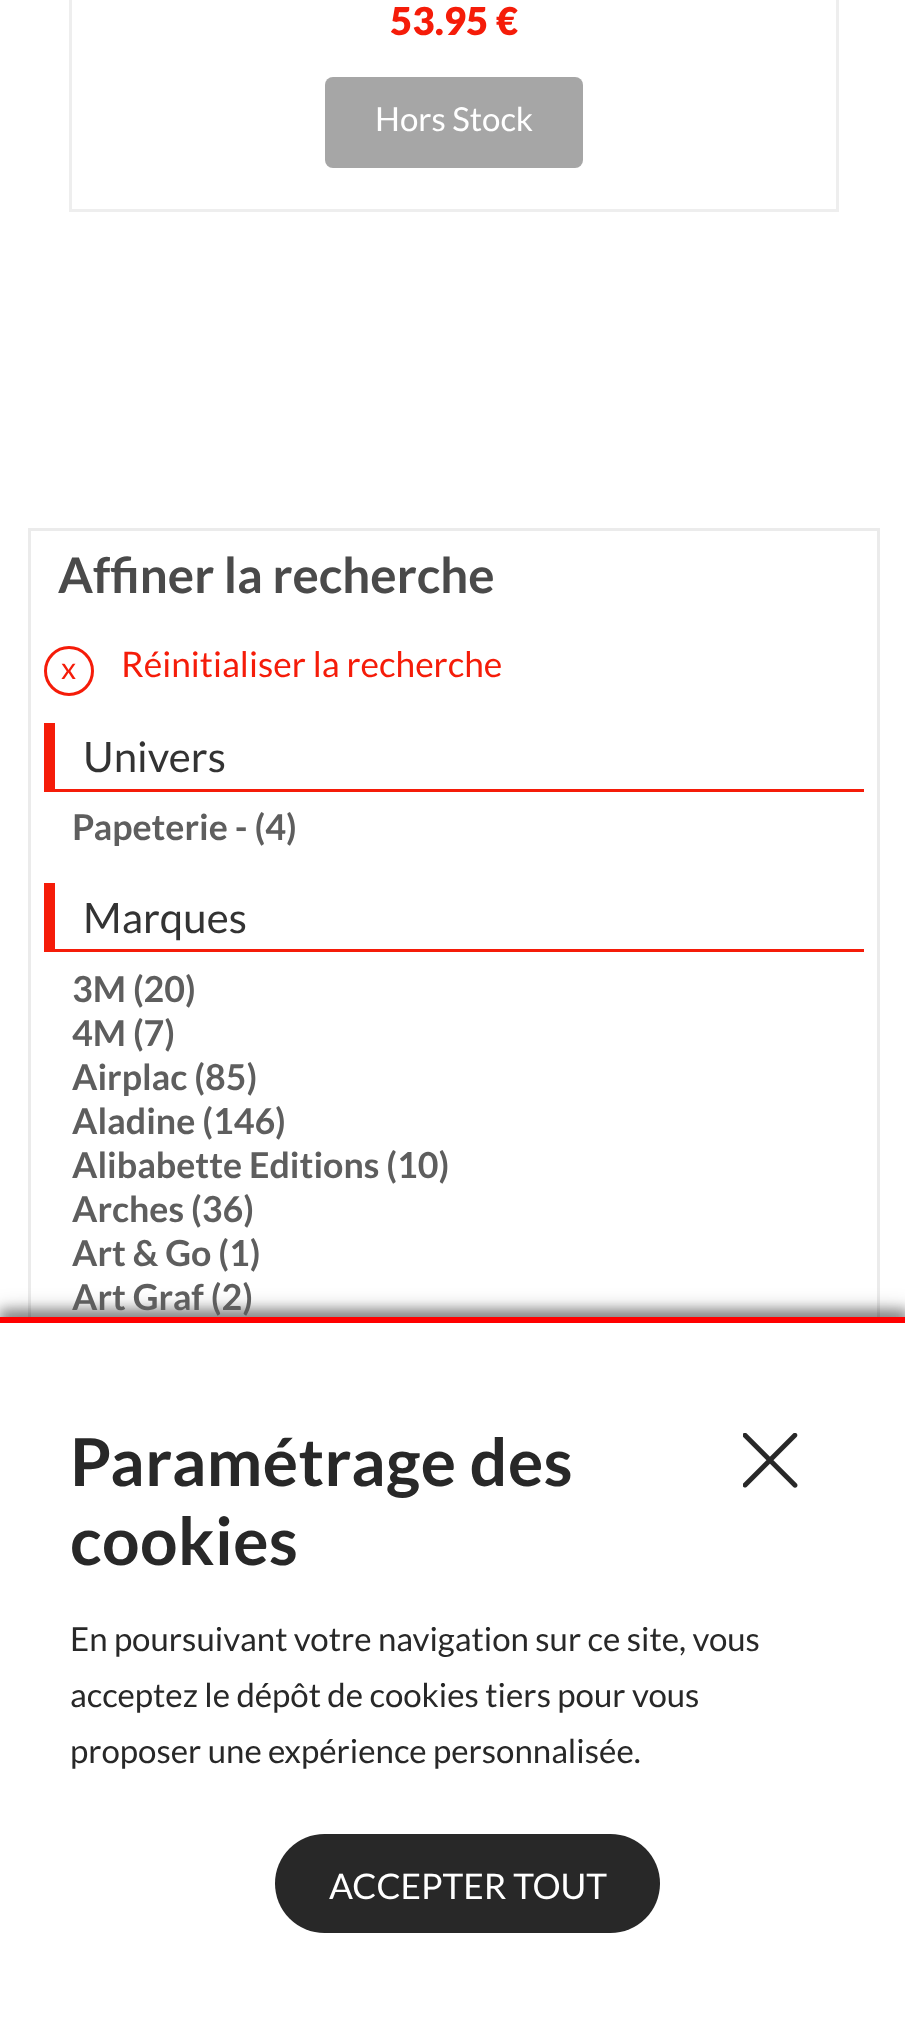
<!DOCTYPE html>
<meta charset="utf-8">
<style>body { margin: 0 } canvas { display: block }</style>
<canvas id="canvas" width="905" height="2031"></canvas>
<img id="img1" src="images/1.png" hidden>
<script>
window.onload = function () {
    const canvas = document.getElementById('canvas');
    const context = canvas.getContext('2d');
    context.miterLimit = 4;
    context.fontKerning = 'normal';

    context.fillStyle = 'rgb(255, 255, 255)';
    context.fillRect(0, 0, 905, 2031);
    context.strokeStyle = 'rgb(238, 238, 238)';
    context.lineWidth = 3;
    context.strokeRect(70.5, -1.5, 767, 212);
    context.fillStyle = 'rgb(166, 166, 166)';
    context.beginPath();
    context.roundRect(325, 77, 258, 91, 8);
    context.fill();
    context.strokeStyle = 'rgb(235, 235, 235)';
    context.strokeRect(29.5, 529.5, 849, 1460);
    context.beginPath();
    context.arc(69, 671, 23.5, 0, 2 * Math.PI);
    context.strokeStyle = 'rgb(245, 28, 9)';
    context.stroke();
    context.fillStyle = 'rgb(245, 28, 9)';
    context.fillRect(55, 789, 809, 3);
    context.fillRect(44, 723, 11, 69);
    context.fillRect(55, 949, 809, 3);
    context.fillRect(44, 883, 11, 69);
    context.fillStyle = 'rgba(0, 0, 0, 0.3)';
    context.filter = 'blur(11px)';
    context.beginPath();
    context.rect(0, 1312, 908, 715);
    context.fill();
    context.filter = 'none';
    context.filter = 'blur(5.5px)';
    context.beginPath();
    context.rect(0, 1309, 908, 715);
    context.fill();
    context.filter = 'none';
    context.fillStyle = 'rgb(255, 255, 255)';
    context.fillRect(0, 1323, 905, 708);
    context.fillStyle = 'rgb(255, 0, 0)';
    context.fillRect(0, 1317, 905, 6);
    context.drawImage(document.getElementById('img1'), 743, 1433, 55, 55);
    context.fillStyle = 'rgb(40, 40, 40)';
    context.beginPath();
    context.roundRect(275, 1834, 385, 99, 49.5);
    context.fill();
    context.font = '900 38.5px Lato';
    context.fillStyle = 'rgb(245, 28, 9)';
    context.fillText('53.95 €', 390, 35);
    context.font = '33px Lato';
    context.fillStyle = 'rgb(255, 255, 255)';
    context.fillText('Hors Stock', 375, 131);
    context.font = 'bold 49.25px Lato';
    context.fillStyle = 'rgb(74, 74, 74)';
    context.fillText('Affiner la recherche', 58, 593);
    context.font = '30px Lato';
    context.fillStyle = 'rgb(245, 28, 9)';
    context.fillText('x', 61, 679);
    context.font = '35.25px Lato';
    context.fillText('Réinitialiser la recherche', 121, 677);
    context.font = '42px Lato';
    context.fillStyle = 'rgb(51, 51, 51)';
    context.fillText('Univers', 83, 772);
    context.font = 'bold 35.75px Lato';
    context.fillStyle = 'rgb(94, 94, 94)';
    context.fillText('Papeterie - (4)', 72, 840);
    context.font = '42px Lato';
    context.fillStyle = 'rgb(51, 51, 51)';
    context.fillText('Marques', 83, 933);
    context.font = 'bold 35.75px Lato';
    context.fillStyle = 'rgb(94, 94, 94)';
    context.fillText('3M (20)', 72, 1002);
    context.fillText('4M (7)', 72, 1046);
    context.fillText('Airplac (85)', 72, 1090);
    context.fillText('Aladine (146)', 72, 1134);
    context.fillText('Alibabette Editions (10)', 72, 1178);
    context.fillText('Arches (36)', 72, 1222);
    context.fillText('Art & Go (1)', 72, 1266);
    context.fillText('Art Graf (2)', 72, 1310);
    context.letterSpacing = '0.5px';
    context.font = 'bold 66px Lato';
    context.fillStyle = 'rgb(40, 40, 40)';
    context.fillText('Paramétrage des', 70, 1486);
    context.fillText('cookies', 70, 1565);
    context.letterSpacing = '0px';
    context.font = '33px Lato';
    context.fillText('En poursuivant votre navigation sur ce site, vous', 70, 1651);
    context.fillText('acceptez le dépôt de cookies tiers pour vous', 70, 1707);
    context.fillText('proposer une expérience personnalisée.', 70, 1763);
    context.font = '35.25px Lato';
    context.fillStyle = 'rgb(255, 255, 255)';
    context.fillText('ACCEPTER TOUT', 329, 1899);
};
</script>
